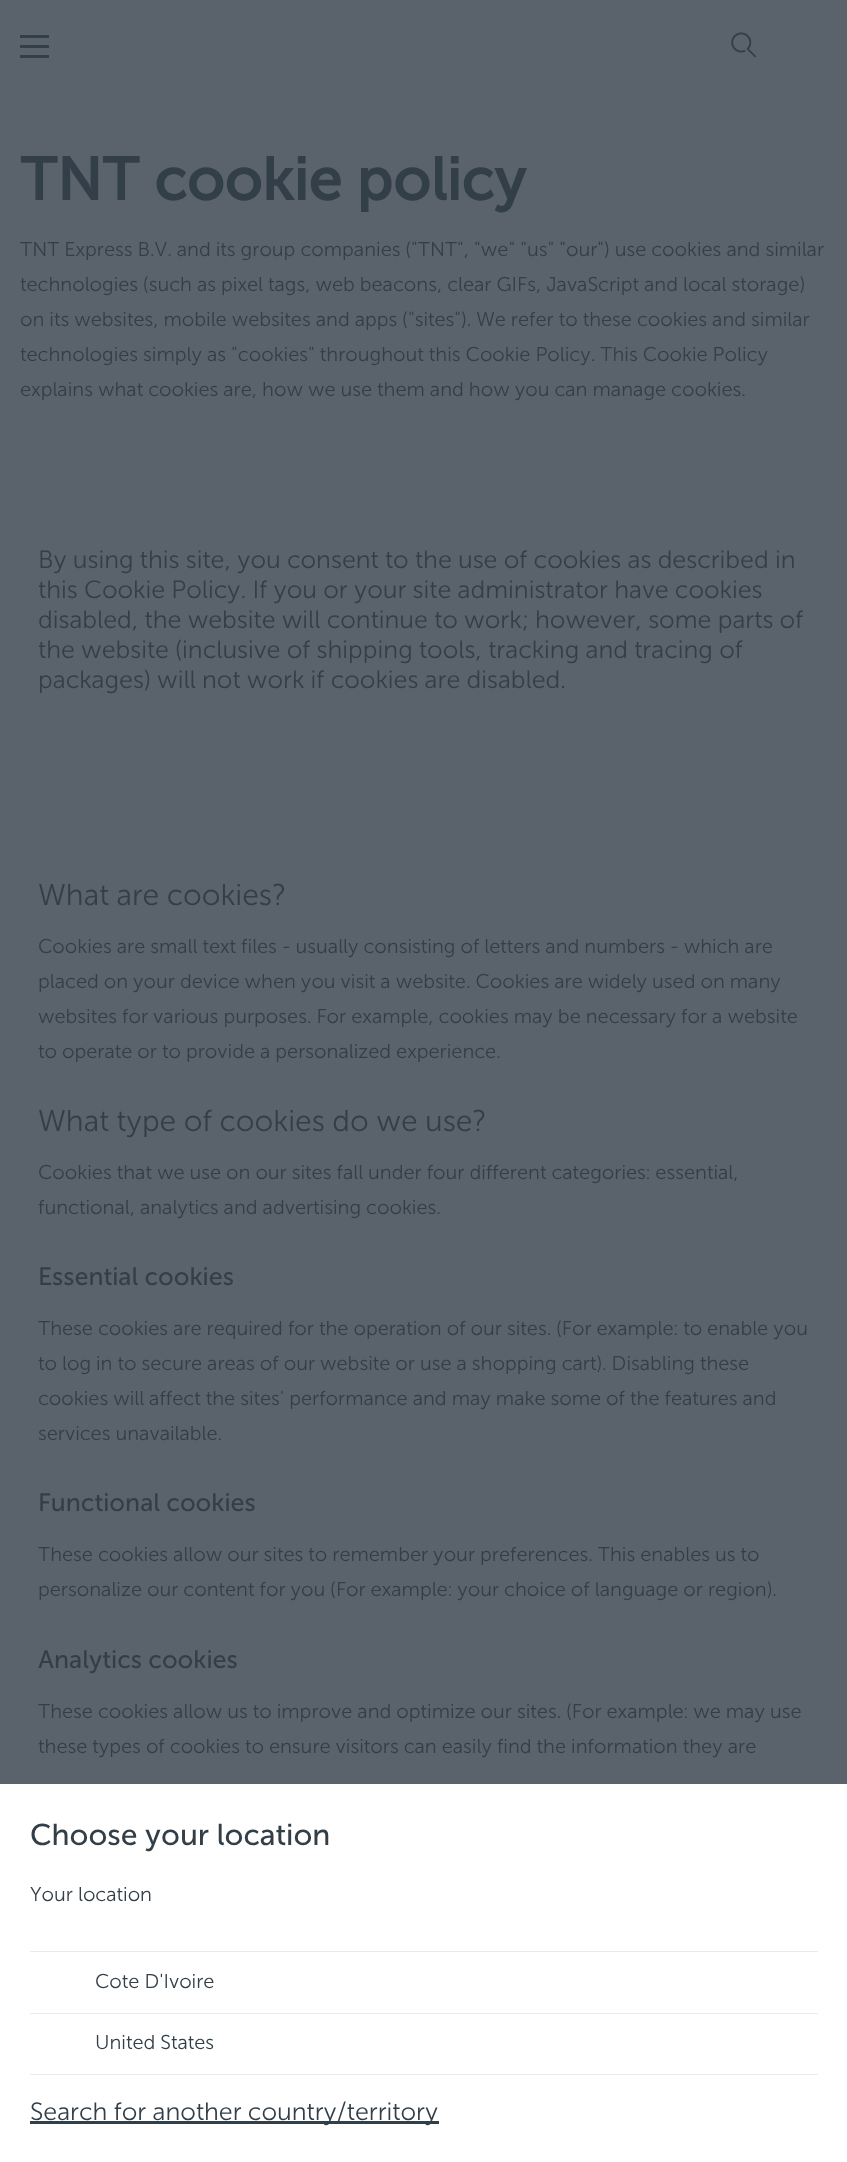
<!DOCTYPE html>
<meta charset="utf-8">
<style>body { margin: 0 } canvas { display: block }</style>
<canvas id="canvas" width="847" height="2162"></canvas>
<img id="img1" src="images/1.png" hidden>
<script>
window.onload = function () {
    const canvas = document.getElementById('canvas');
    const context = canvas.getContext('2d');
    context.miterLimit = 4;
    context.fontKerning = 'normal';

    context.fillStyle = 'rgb(90, 99, 107)';
    context.fillRect(0, 0, 847, 2162);
    context.fillStyle = 'rgb(51, 63, 72)';
    context.fillRect(20, 35, 29, 3);
    context.fillRect(20, 45, 29, 3);
    context.fillRect(20, 55, 29, 3);
    context.drawImage(document.getElementById('img1'), 731, 32, 26, 26);
    context.fillStyle = 'rgb(255, 255, 255)';
    context.fillRect(0, 1784, 847, 378);
    context.fillStyle = 'rgb(234, 235, 236)';
    context.fillRect(30, 1951, 788, 1);
    context.fillRect(30, 2074, 788, 1);
    context.fillRect(30, 2013, 788, 1);
    context.fillStyle = 'rgb(51, 63, 72)';
    context.fillRect(30, 2121, 409, 3);
    context.font = 'bold 60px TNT';
    context.fillText('TNT cookie policy', 20, 200);
    context.font = '20px TNT';
    context.fillText('TNT Express B.V. and its group companies ("TNT", "we" "us" "our") use cookies and similar', 20, 256);
    context.fillText('technologies (such as pixel tags, web beacons, clear GIFs, JavaScript and local storage)', 20, 291);
    context.fillText('on its websites, mobile websites and apps ("sites"). We refer to these cookies and similar', 20, 326);
    context.fillText('technologies simply as "cookies" throughout this Cookie Policy. This Cookie Policy', 20, 361);
    context.fillText('explains what cookies are, how we use them and how you can manage cookies.', 20, 396);
    context.font = '25px TNT';
    context.fillText('By using this site, you consent to the use of cookies as described in', 38, 568);
    context.fillText('this Cookie Policy. If you or your site administrator have cookies', 38, 598);
    context.fillText('disabled, the website will continue to work; however, some parts of', 38, 628);
    context.fillText('the website (inclusive of shipping tools, tracking and tracing of', 38, 658);
    context.fillText('packages) will not work if cookies are disabled.', 38, 688);
    context.font = '30px TNT';
    context.fillText('What are cookies?', 38, 905);
    context.font = '20px TNT';
    context.fillText('Cookies are small text files - usually consisting of letters and numbers - which are', 38, 953);
    context.fillText('placed on your device when you visit a website. Cookies are widely used on many', 38, 988);
    context.fillText('websites for various purposes. For example, cookies may be necessary for a website', 38, 1023);
    context.fillText('to operate or to provide a personalized experience.', 38, 1058);
    context.font = '30px TNT';
    context.fillText('What type of cookies do we use?', 38, 1131);
    context.font = '20px TNT';
    context.fillText('Cookies that we use on our sites fall under four different categories: essential,', 38, 1179);
    context.fillText('functional, analytics and advertising cookies.', 38, 1214);
    context.font = '25px "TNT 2"';
    context.fillText('Essential cookies', 38, 1285);
    context.font = '20px TNT';
    context.fillText('These cookies are required for the operation of our sites. (For example: to enable you', 38, 1335);
    context.fillText('to log in to secure areas of our website or use a shopping cart). Disabling these', 38, 1370);
    context.fillText('cookies will affect the sites\' performance and may make some of the features and', 38, 1405);
    context.fillText('services unavailable.', 38, 1440);
    context.font = '25px "TNT 2"';
    context.fillText('Functional cookies', 38, 1511);
    context.font = '20px TNT';
    context.fillText('These cookies allow our sites to remember your preferences. This enables us to', 38, 1561);
    context.fillText('personalize our content for you (For example: your choice of language or region).', 38, 1596);
    context.font = '25px "TNT 2"';
    context.fillText('Analytics cookies', 38, 1668);
    context.font = '20px TNT';
    context.fillText('These cookies allow us to improve and optimize our sites. (For example: we may use', 38, 1718);
    context.fillText('these types of cookies to ensure visitors can easily find the information they are', 38, 1753);
    context.font = '30px "TNT 2"';
    context.fillText('Choose your location', 30, 1845);
    context.font = '20px TNT';
    context.fillText('Your location', 30, 1901);
    context.fillText('Cote D\'Ivoire', 95, 1988);
    context.fillText('United States', 95, 2049);
    context.font = '25px TNT';
    context.fillText('Search for another country/territory', 30, 2120);
};
</script>
